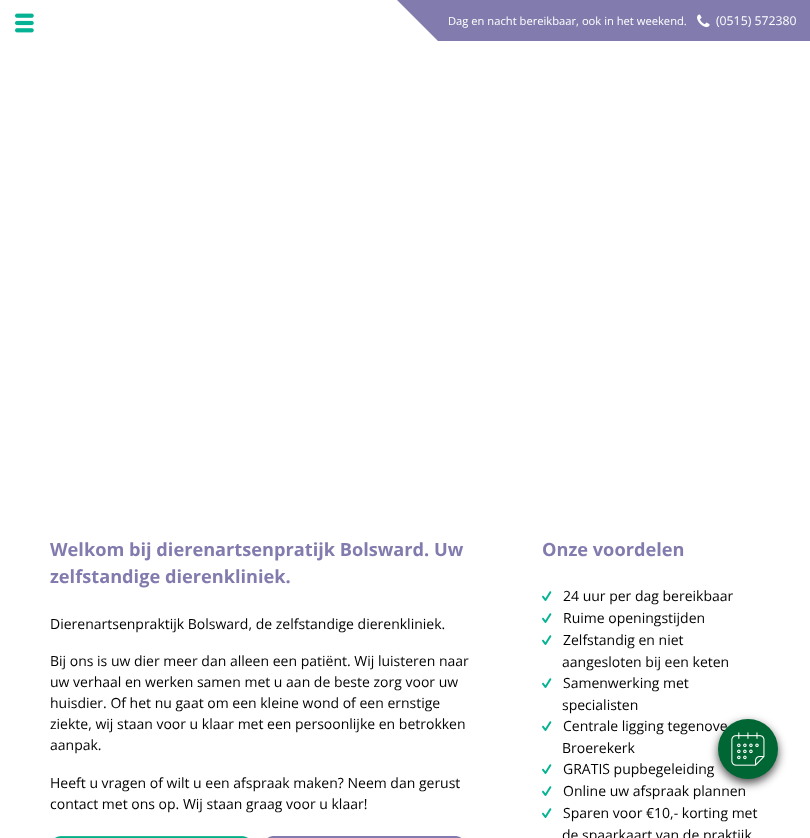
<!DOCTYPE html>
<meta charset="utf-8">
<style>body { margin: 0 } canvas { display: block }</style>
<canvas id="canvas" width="810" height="838"></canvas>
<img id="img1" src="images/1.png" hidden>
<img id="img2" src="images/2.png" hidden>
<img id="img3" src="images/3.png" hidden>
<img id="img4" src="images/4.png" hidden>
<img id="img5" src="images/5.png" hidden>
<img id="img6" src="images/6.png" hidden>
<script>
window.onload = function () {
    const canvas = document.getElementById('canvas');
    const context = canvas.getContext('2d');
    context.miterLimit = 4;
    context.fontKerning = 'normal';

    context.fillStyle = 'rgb(255, 255, 255)';
    context.fillRect(0, 0, 810, 838);
    context.drawImage(document.getElementById('img1'), 15, 13, 19, 20);
    context.fillStyle = 'rgb(129, 123, 174)';
    context.fillRect(438, 0, 372, 41);
    context.beginPath();
    context.moveTo(438, 0);
    context.lineTo(438, 41);
    context.lineTo(397, 0);
    context.closePath();
    context.fill();
    context.drawImage(document.getElementById('img2'), 697, 14, 13, 14);
    context.drawImage(document.getElementById('img3'), 54, 836, 194, 2);
    context.drawImage(document.getElementById('img4'), 263, 836, 203, 2);
    context.drawImage(document.getElementById('img5'), 542, 591, 10, 10);
    context.drawImage(document.getElementById('img5'), 542, 613, 10, 10);
    context.drawImage(document.getElementById('img5'), 542, 635, 10, 10);
    context.drawImage(document.getElementById('img5'), 542, 678, 10, 10);
    context.drawImage(document.getElementById('img5'), 542, 721, 10, 10);
    context.drawImage(document.getElementById('img5'), 542, 764, 10, 10);
    context.drawImage(document.getElementById('img5'), 542, 786, 10, 10);
    context.drawImage(document.getElementById('img5'), 542, 808, 10, 10);
    context.fillStyle = 'rgba(0, 0, 0, 0.7)';
    context.filter = 'blur(5px)';
    context.beginPath();
    context.roundRect(718, 723, 60, 60, 30);
    context.fill();
    context.filter = 'none';
    context.font = '11.2px Open Sans';
    context.fillStyle = 'rgb(255, 255, 255)';
    context.fillText('Dag en nacht bereikbaar, ook in het weekend.', 448, 25);
    context.font = '12.25px Open Sans';
    context.fillText('(0515) 572380', 716, 25);
    context.font = 'bold 18.2px Open Sans';
    context.fillStyle = 'rgb(129, 123, 174)';
    context.fillText('Welkom bij dierenartsenpratijk Bolsward. Uw', 50, 556);
    context.fillText('zelfstandige dierenkliniek.', 50, 583);
    context.font = '14px Open Sans';
    context.fillStyle = 'rgb(0, 0, 0)';
    context.fillText('Dierenartsenpraktijk Bolsward, de zelfstandige dierenkliniek.', 50, 629);
    context.fillText('Bij ons is uw dier meer dan alleen een patiënt. Wij luisteren naar', 50, 666);
    context.fillText('uw verhaal en werken samen met u aan de beste zorg voor uw', 50, 687);
    context.fillText('huisdier. Of het nu gaat om een kleine wond of een ernstige', 50, 708);
    context.fillText('ziekte, wij staan voor u klaar met een persoonlijke en betrokken', 50, 729);
    context.fillText('aanpak.', 50, 750);
    context.fillText('Heeft u vragen of wilt u een afspraak maken? Neem dan gerust', 50, 788);
    context.fillText('contact met ons op. Wij staan graag voor u klaar!', 50, 809);
    context.font = 'bold 18.2px Open Sans';
    context.fillStyle = 'rgb(129, 123, 174)';
    context.fillText('Onze voordelen', 542, 556);
    context.font = '14px Open Sans';
    context.fillStyle = 'rgb(0, 0, 0)';
    context.fillText('24 uur per dag bereikbaar', 563, 601);
    context.fillText('Ruime openingstijden', 563, 623);
    context.fillText('Zelfstandig en niet', 563, 645);
    context.fillText('aangesloten bij een keten', 562, 667);
    context.fillText('Samenwerking met', 563, 688);
    context.fillText('specialisten', 562, 710);
    context.fillText('Centrale ligging tegenove', 563, 731);
    context.fillText('Broerekerk', 562, 753);
    context.fillText('GRATIS pupbegeleiding', 563, 774);
    context.fillText('Online uw afspraak plannen', 563, 796);
    context.fillText('Sparen voor €10,- korting met', 563, 818);
    context.fillText('de spaarkaart van de praktijk', 562, 840);
    context.fillStyle = 'rgb(0, 102, 51)';
    context.beginPath();
    context.arc(748, 749, 30, 0, 2 * Math.PI);
    context.fill();
    context.drawImage(document.getElementById('img6'), 731, 732, 34, 34);
};
</script>
